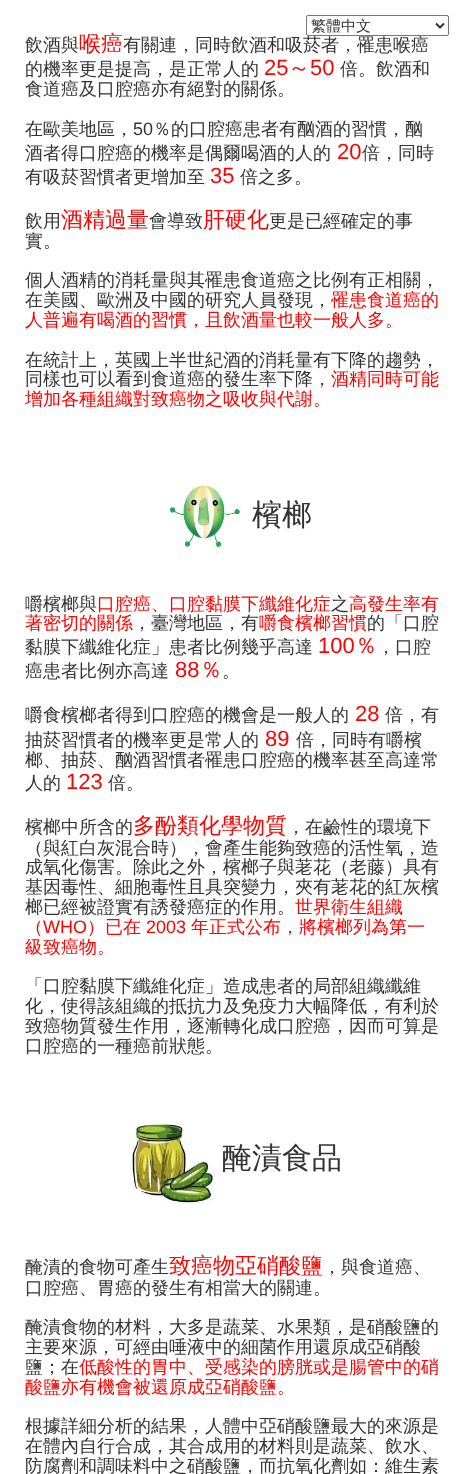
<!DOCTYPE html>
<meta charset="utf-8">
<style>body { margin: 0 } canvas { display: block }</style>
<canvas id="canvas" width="464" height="1474"></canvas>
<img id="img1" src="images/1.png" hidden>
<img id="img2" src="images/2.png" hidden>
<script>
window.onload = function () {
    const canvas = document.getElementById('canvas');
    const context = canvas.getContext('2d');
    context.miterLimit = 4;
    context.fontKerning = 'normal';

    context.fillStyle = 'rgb(255, 255, 255)';
    context.fillRect(0, 0, 464, 1474);
    context.drawImage(document.getElementById('img1'), 170, 485, 70, 63);
    context.drawImage(document.getElementById('img2'), 131, 1119, 85, 85);
    context.font = '500 18px WenQuanYi Zen Hei';
    context.fillStyle = 'rgb(51, 51, 51)';
    context.fillText('飲酒與', 25, 51);
    context.font = '500 22px WenQuanYi Zen Hei';
    context.fillStyle = 'rgb(255, 0, 0)';
    context.fillText('喉癌', 79, 51);
    context.font = '500 18px WenQuanYi Zen Hei';
    context.fillStyle = 'rgb(51, 51, 51)';
    context.fillText('有關連，同時飲酒和吸菸者，罹患喉癌', 123, 51);
    context.fillStyle = 'rgb(255, 255, 255)';
    context.beginPath();
    context.roundRect(306.5, 15.5, 142, 20, 1.5);
    context.fill();
    context.strokeStyle = 'rgb(118, 118, 118)';
    context.stroke();
    context.font = '500 15px WenQuanYi Zen Hei';
    context.fillStyle = 'rgb(51, 51, 51)';
    context.fillText('繁體中文', 311, 31);
    context.beginPath();
    context.moveTo(436, 23.5);
    context.lineTo(440, 27.5);
    context.lineTo(444, 23.5);
    context.strokeStyle = 'rgb(51, 51, 51)';
    context.lineWidth = 2;
    context.stroke();
    context.font = '500 18px WenQuanYi Zen Hei';
    context.fillText('的機率更是提高，是正常人的', 25, 75);
    context.font = '22px Liberation Sans';
    context.fillStyle = 'rgb(255, 0, 0)';
    context.fillText('25', 264, 75);
    context.font = '500 22px WenQuanYi Zen Hei';
    context.fillText('～', 288, 75);
    context.font = '22px Liberation Sans';
    context.fillText('50', 310, 75);
    context.font = '500 18px WenQuanYi Zen Hei';
    context.fillStyle = 'rgb(51, 51, 51)';
    context.fillText('倍。飲酒和', 340, 75);
    context.fillText('食道癌及口腔癌亦有絕對的關係。', 25, 95);
    context.fillText('在歐美地區，', 25, 135);
    context.font = '18px Liberation Sans';
    context.fillText('50', 133, 135);
    context.font = '500 18px WenQuanYi Zen Hei';
    context.fillText('％的口腔癌患者有酗酒的習慣，酗', 153, 135);
    context.fillText('酒者得口腔癌的機率是偶爾喝酒的人的', 25, 159);
    context.font = '22px Liberation Sans';
    context.fillStyle = 'rgb(255, 0, 0)';
    context.fillText('20', 337, 159);
    context.font = '500 18px WenQuanYi Zen Hei';
    context.fillStyle = 'rgb(51, 51, 51)';
    context.fillText('倍，同時', 362, 159);
    context.fillText('有吸菸習慣者更增加至', 25, 183);
    context.font = '22px Liberation Sans';
    context.fillStyle = 'rgb(255, 0, 0)';
    context.fillText('35', 210, 183);
    context.font = '500 18px WenQuanYi Zen Hei';
    context.fillStyle = 'rgb(51, 51, 51)';
    context.fillText('倍之多。', 240, 183);
    context.fillText('飲用', 25, 227);
    context.font = '500 22px WenQuanYi Zen Hei';
    context.fillStyle = 'rgb(255, 0, 0)';
    context.fillText('酒精過量', 61, 227);
    context.font = '500 18px WenQuanYi Zen Hei';
    context.fillStyle = 'rgb(51, 51, 51)';
    context.fillText('會導致', 149, 227);
    context.font = '500 22px WenQuanYi Zen Hei';
    context.fillStyle = 'rgb(255, 0, 0)';
    context.fillText('肝硬化', 203, 227);
    context.font = '500 18px WenQuanYi Zen Hei';
    context.fillStyle = 'rgb(51, 51, 51)';
    context.fillText('更是已經確定的事', 269, 227);
    context.fillText('實。', 25, 247);
    context.fillText('個人酒精的消耗量與其罹患食道癌之比例有正相關，', 25, 286);
    context.fillText('在美國、歐洲及中國的研究人員發現，', 25, 306);
    context.fillStyle = 'rgb(255, 0, 0)';
    context.fillText('罹患食道癌的', 331, 306);
    context.fillText('人普遍有喝酒的習慣，且飲酒量也較一般人多。', 25, 326);
    context.fillStyle = 'rgb(51, 51, 51)';
    context.fillText('在統計上，英國上半世紀酒的消耗量有下降的趨勢，', 25, 366);
    context.fillText('同樣也可以看到食道癌的發生率下降，', 25, 385);
    context.fillStyle = 'rgb(255, 0, 0)';
    context.fillText('酒精同時可能', 331, 385);
    context.fillText('增加各種組織對致癌物之吸收與代謝。', 25, 405);
    context.font = '500 30px WenQuanYi Zen Hei';
    context.fillStyle = 'rgb(51, 51, 51)';
    context.fillText('檳榔', 252, 525);
    context.font = '500 18px WenQuanYi Zen Hei';
    context.fillText('嚼檳榔與', 25, 610);
    context.fillStyle = 'rgb(255, 0, 0)';
    context.fillText('口腔癌、口腔黏膜下纖維化症', 97, 610);
    context.fillStyle = 'rgb(51, 51, 51)';
    context.fillText('之', 331, 610);
    context.fillStyle = 'rgb(255, 0, 0)';
    context.fillText('高發生率有', 349, 610);
    context.fillText('著密切的關係', 25, 629);
    context.fillStyle = 'rgb(51, 51, 51)';
    context.fillText('，臺灣地區，有', 133, 629);
    context.fillStyle = 'rgb(255, 0, 0)';
    context.fillText('嚼食檳榔習慣', 259, 629);
    context.fillStyle = 'rgb(51, 51, 51)';
    context.fillText('的「口腔', 367, 629);
    context.fillText('黏膜下纖維化症」患者比例幾乎高達', 25, 653);
    context.font = '22px Liberation Sans';
    context.fillStyle = 'rgb(255, 0, 0)';
    context.fillText('100', 318, 653);
    context.font = '500 22px WenQuanYi Zen Hei';
    context.fillText('％', 355, 653);
    context.font = '500 18px WenQuanYi Zen Hei';
    context.fillStyle = 'rgb(51, 51, 51)';
    context.fillText('，口腔', 377, 653);
    context.fillText('癌患者比例亦高達', 25, 677);
    context.font = '22px Liberation Sans';
    context.fillStyle = 'rgb(255, 0, 0)';
    context.fillText('88', 175, 677);
    context.font = '500 22px WenQuanYi Zen Hei';
    context.fillText('％', 200, 677);
    context.font = '500 18px WenQuanYi Zen Hei';
    context.fillStyle = 'rgb(51, 51, 51)';
    context.fillText('。', 222, 677);
    context.fillText('嚼食檳榔者得到口腔癌的機會是一般人的', 25, 721);
    context.font = '22px Liberation Sans';
    context.fillStyle = 'rgb(255, 0, 0)';
    context.fillText('28', 355, 721);
    context.font = '500 18px WenQuanYi Zen Hei';
    context.fillStyle = 'rgb(51, 51, 51)';
    context.fillText('倍，有', 385, 721);
    context.fillText('抽菸習慣者的機率更是常人的', 25, 746);
    context.font = '22px Liberation Sans';
    context.fillStyle = 'rgb(255, 0, 0)';
    context.fillText('89', 265, 746);
    context.font = '500 18px WenQuanYi Zen Hei';
    context.fillStyle = 'rgb(51, 51, 51)';
    context.fillText('倍，同時有嚼檳', 296, 746);
    context.fillText('榔、抽菸、酗酒習慣者罹患口腔癌的機率甚至高達常', 25, 766);
    context.fillText('人的', 25, 789);
    context.font = '22px Liberation Sans';
    context.fillStyle = 'rgb(255, 0, 0)';
    context.fillText('123', 66, 789);
    context.font = '500 18px WenQuanYi Zen Hei';
    context.fillStyle = 'rgb(51, 51, 51)';
    context.fillText('倍。', 108, 789);
    context.fillText('檳榔中所含的', 25, 833);
    context.font = '500 22px WenQuanYi Zen Hei';
    context.fillStyle = 'rgb(255, 0, 0)';
    context.fillText('多酚類化學物質', 133, 833);
    context.font = '500 18px WenQuanYi Zen Hei';
    context.fillStyle = 'rgb(51, 51, 51)';
    context.fillText('，在鹼性的環境下', 287, 833);
    context.fillText('（與紅白灰混合時），會產生能夠致癌的活性氧，造', 25, 854);
    context.fillText('成氧化傷害。除此之外，檳榔子與荖花（老藤）具有', 25, 873);
    context.fillText('基因毒性、細胞毒性且具突變力，夾有荖花的紅灰檳', 25, 893);
    context.fillText('榔已經被證實有誘發癌症的作用。', 25, 913);
    context.fillStyle = 'rgb(255, 0, 0)';
    context.fillText('世界衛生組織', 295, 913);
    context.fillText('（', 25, 933);
    context.font = '18px Liberation Sans';
    context.fillText('WHO', 43, 933);
    context.font = '500 18px WenQuanYi Zen Hei';
    context.fillText('）已在', 87, 933);
    context.font = '18px Liberation Sans';
    context.fillText('2003', 146, 933);
    context.font = '500 18px WenQuanYi Zen Hei';
    context.fillText('年正式公布，將檳榔列為第一', 191, 933);
    context.fillText('級致癌物。', 25, 953);
    context.fillStyle = 'rgb(51, 51, 51)';
    context.fillText('「口腔黏膜下纖維化症」造成患者的局部組織纖維', 25, 992);
    context.fillText('化，使得該組織的抵抗力及免疫力大幅降低，有利於', 25, 1012);
    context.fillText('致癌物質發生作用，逐漸轉化成口腔癌，因而可算是', 25, 1032);
    context.fillText('口腔癌的一種癌前狀態。', 25, 1052);
    context.font = '500 30px WenQuanYi Zen Hei';
    context.fillText('醃漬食品', 222, 1168);
    context.font = '500 18px WenQuanYi Zen Hei';
    context.fillText('醃漬的食物可產生', 25, 1273);
    context.font = '500 22px WenQuanYi Zen Hei';
    context.fillStyle = 'rgb(255, 0, 0)';
    context.fillText('致癌物亞硝酸鹽', 169, 1273);
    context.font = '500 18px WenQuanYi Zen Hei';
    context.fillStyle = 'rgb(51, 51, 51)';
    context.fillText('，與食道癌、', 323, 1273);
    context.fillText('口腔癌、胃癌的發生有相當大的關連。', 25, 1294);
    context.fillText('醃漬食物的材料，大多是蔬菜、水果類，是硝酸鹽的', 25, 1333);
    context.fillText('主要來源，可經由唾液中的細菌作用還原成亞硝酸', 25, 1353);
    context.fillText('鹽；在', 25, 1373);
    context.fillStyle = 'rgb(255, 0, 0)';
    context.fillText('低酸性的胃中、受感染的膀胱或是腸管中的硝', 79, 1373);
    context.fillText('酸鹽亦有機會被還原成亞硝酸鹽。', 25, 1393);
    context.fillStyle = 'rgb(51, 51, 51)';
    context.fillText('根據詳細分析的結果，人體中亞硝酸鹽最大的來源是', 25, 1432);
    context.fillText('在體內自行合成，其合成用的材料則是蔬菜、飲水、', 25, 1452);
    context.fillText('防腐劑和調味料中之硝酸鹽，而抗氧化劑如：維生素', 25, 1472);
};
</script>
